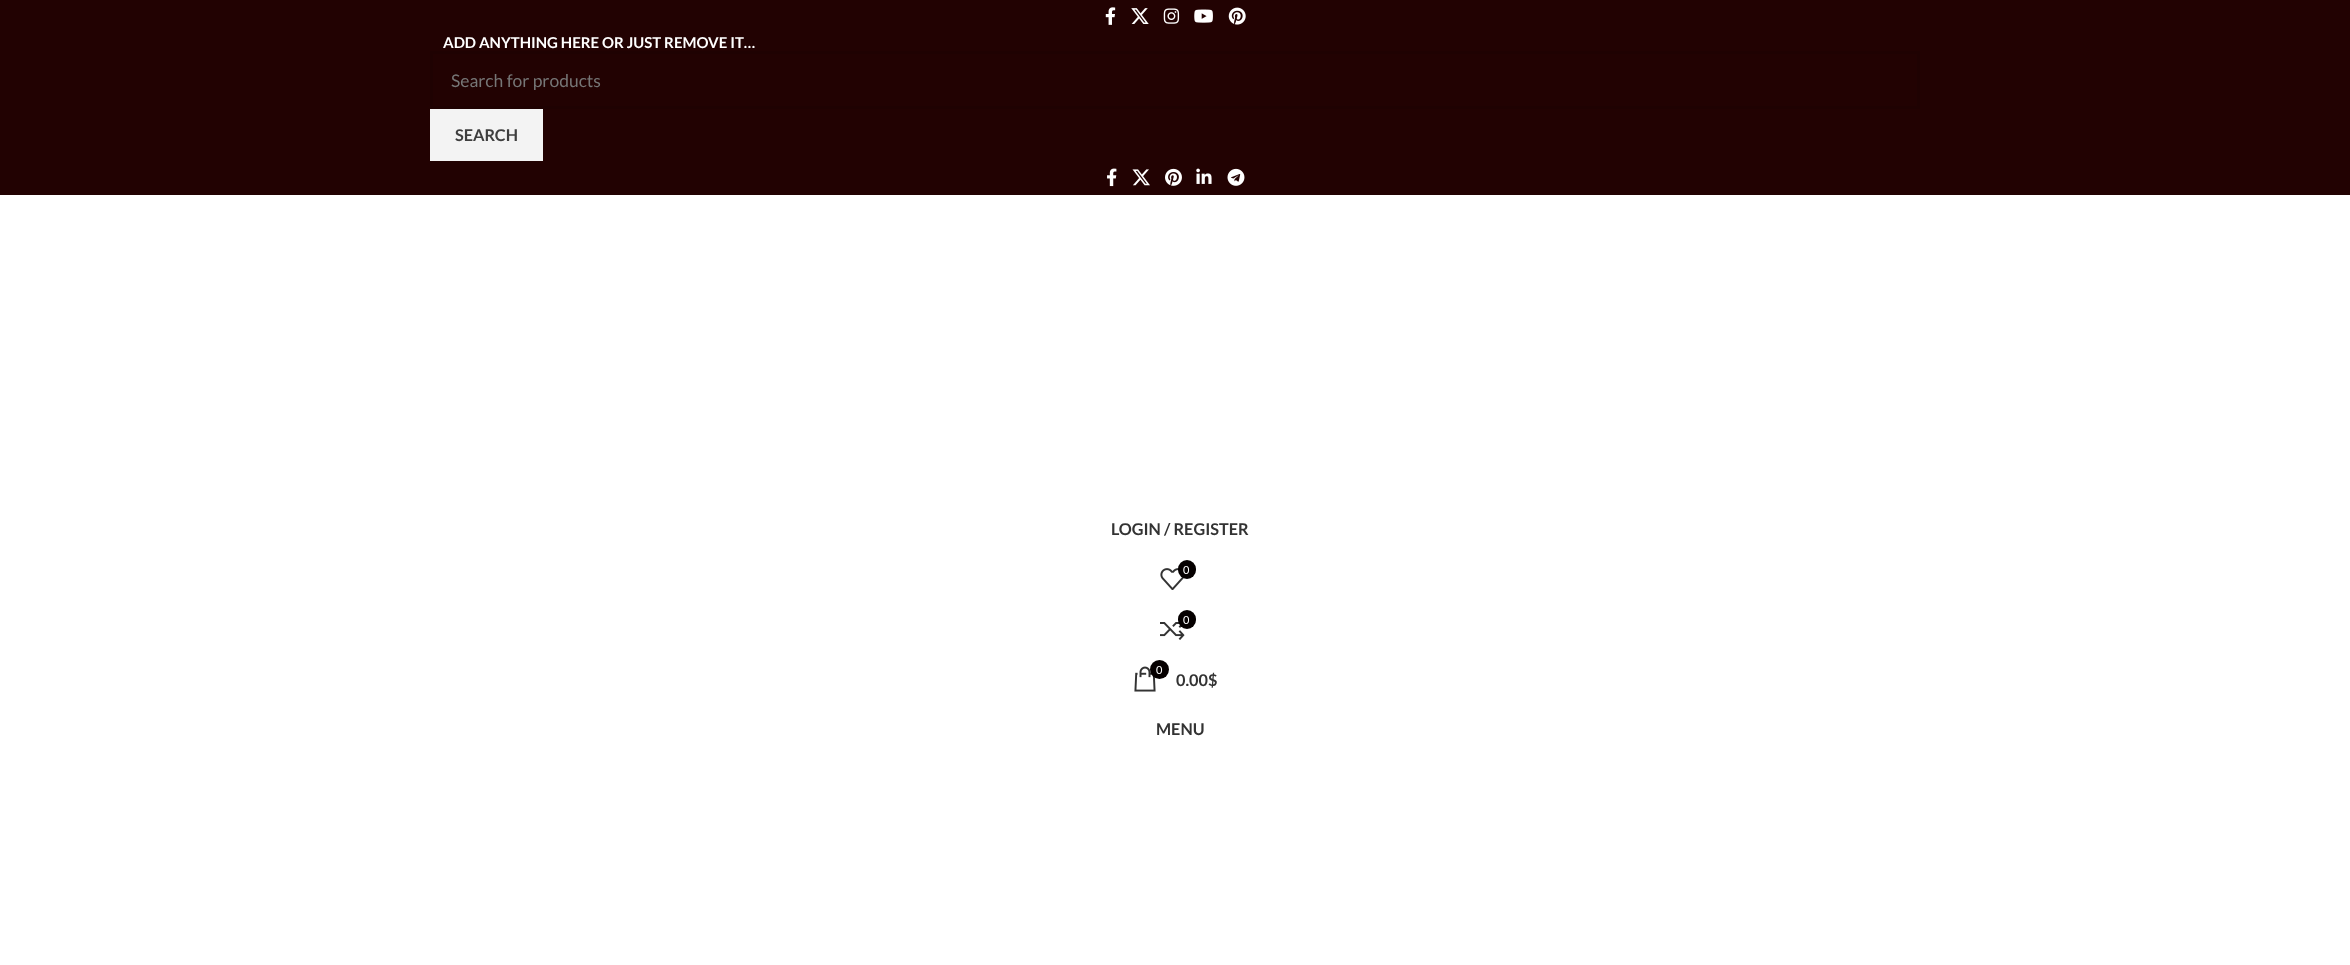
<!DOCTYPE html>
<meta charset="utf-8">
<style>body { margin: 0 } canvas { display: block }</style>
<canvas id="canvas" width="2350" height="965"></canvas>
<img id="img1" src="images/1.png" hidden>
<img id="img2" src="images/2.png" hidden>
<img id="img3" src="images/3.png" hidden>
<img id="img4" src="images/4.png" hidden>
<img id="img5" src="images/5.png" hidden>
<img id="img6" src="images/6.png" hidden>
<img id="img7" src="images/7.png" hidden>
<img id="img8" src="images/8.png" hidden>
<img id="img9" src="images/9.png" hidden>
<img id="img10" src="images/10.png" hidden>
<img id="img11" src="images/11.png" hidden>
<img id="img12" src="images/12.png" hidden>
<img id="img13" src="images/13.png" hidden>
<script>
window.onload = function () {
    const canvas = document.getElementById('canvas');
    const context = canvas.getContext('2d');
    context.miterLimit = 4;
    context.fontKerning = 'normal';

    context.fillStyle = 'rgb(255, 255, 255)';
    context.fillRect(0, 0, 2350, 965);
    context.fillStyle = 'rgb(34, 2, 2)';
    context.fillRect(0, 0, 2350, 195);
    context.drawImage(document.getElementById('img1'), 1105, 7, 11, 18);
    context.drawImage(document.getElementById('img2'), 1131, 8, 18, 16);
    context.drawImage(document.getElementById('img3'), 1163, 8, 17, 16);
    context.drawImage(document.getElementById('img4'), 1194, 9, 19, 14);
    context.drawImage(document.getElementById('img5'), 1228, 7, 18, 18);
    context.strokeStyle = 'rgb(31, 2, 2)';
    context.lineWidth = 3;
    context.strokeRect(431.5, 52.5, 1487, 55);
    context.fillStyle = 'rgb(243, 243, 243)';
    context.fillRect(430, 109, 113, 52);
    context.drawImage(document.getElementById('img6'), 1107, 168, 10, 19);
    context.drawImage(document.getElementById('img7'), 1132, 169, 18, 17);
    context.drawImage(document.getElementById('img8'), 1165, 168, 17, 18);
    context.drawImage(document.getElementById('img9'), 1196, 168, 16, 16);
    context.drawImage(document.getElementById('img10'), 1227, 168, 18, 18);
    context.drawImage(document.getElementById('img11'), 1160, 568, 24, 22);
    context.fillStyle = 'rgb(5, 0, 0)';
    context.beginPath();
    context.roundRect(1178, 560, 18, 19, 9);
    context.fill();
    context.drawImage(document.getElementById('img12'), 1160, 622, 25, 18);
    context.beginPath();
    context.roundRect(1178, 610, 18, 19, 9);
    context.fill();
    context.drawImage(document.getElementById('img13'), 1134, 666, 22, 26);
    context.beginPath();
    context.arc(1159.5, 669.5, 9.5, 0, 2 * Math.PI);
    context.fill();
    context.font = 'bold 15px Lato';
    context.fillStyle = 'rgb(255, 255, 255)';
    context.fillText('ADD ANYTHING HERE OR JUST REMOVE IT…', 443, 48);
    context.font = '17.5px Lato';
    context.fillStyle = 'rgb(118, 118, 118)';
    context.fillText('Search for products', 451, 87);
    context.font = 'bold 16.25px Lato';
    context.fillStyle = 'rgb(62, 62, 62)';
    context.fillText('SEARCH', 455, 141);
    context.fillStyle = 'rgb(51, 51, 51)';
    context.fillText('LOGIN / REGISTER', 1111, 535);
    context.font = '11px Lato';
    context.fillStyle = 'rgb(255, 255, 255)';
    context.fillText('0', 1183, 574);
    context.fillText('0', 1183, 624);
    context.fillText('0', 1156, 674);
    context.font = 'bold 16.25px Lato';
    context.fillStyle = 'rgb(51, 51, 51)';
    context.fillText('0.00$', 1176, 686);
    context.fillText('MENU', 1156, 735);
};
</script>
